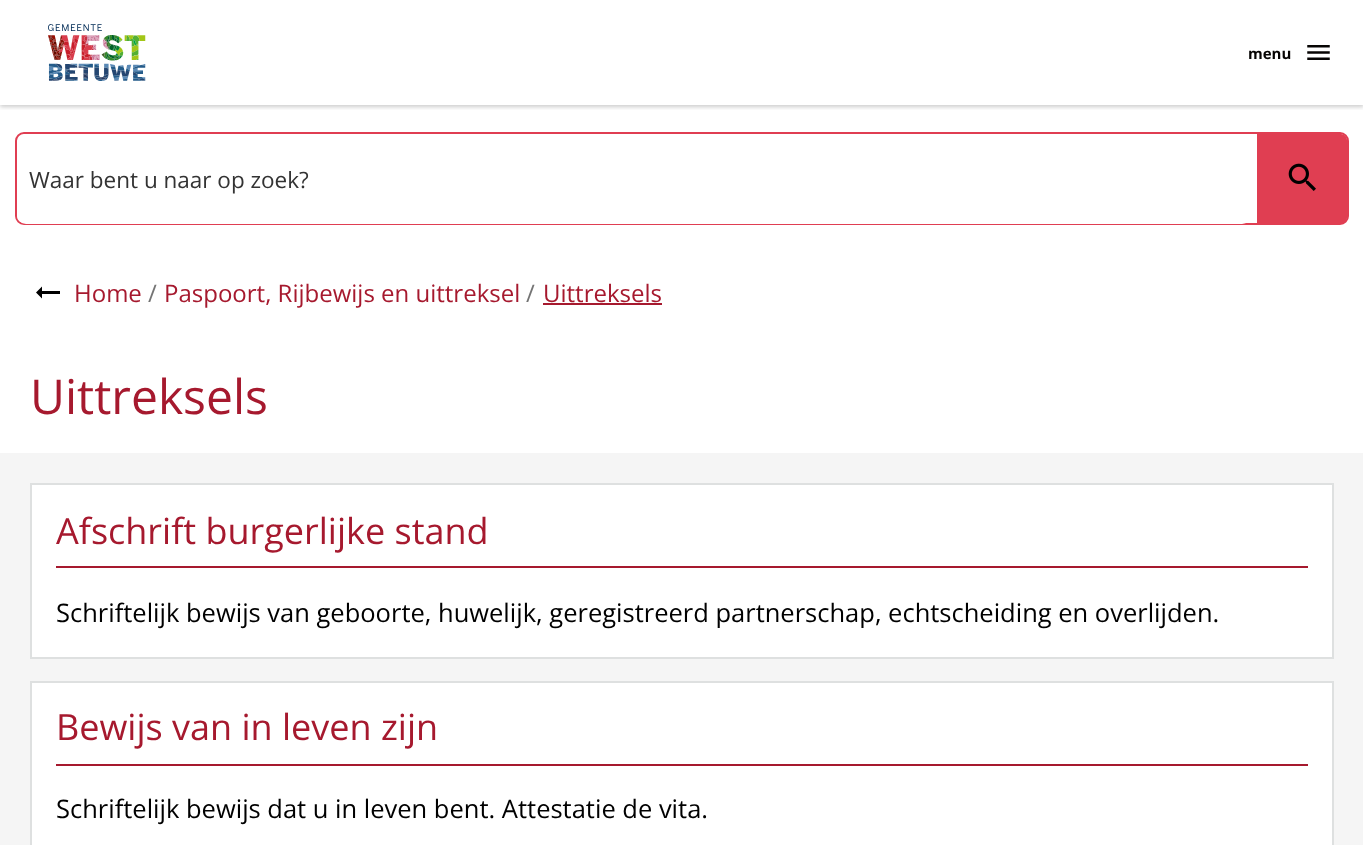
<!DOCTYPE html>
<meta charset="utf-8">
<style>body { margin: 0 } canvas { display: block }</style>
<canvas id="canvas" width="1363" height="845"></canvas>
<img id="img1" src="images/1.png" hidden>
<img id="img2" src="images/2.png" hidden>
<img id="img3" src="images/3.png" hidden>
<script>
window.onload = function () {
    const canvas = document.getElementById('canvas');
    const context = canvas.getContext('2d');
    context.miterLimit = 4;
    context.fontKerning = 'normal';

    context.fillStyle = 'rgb(255, 255, 255)';
    context.fillRect(0, 0, 1363, 845);
    context.save();
    context.beginPath();
    context.rect(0, 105, 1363, 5);
    context.clip();
    context.fillStyle = 'rgba(0, 0, 0, 0.2)';
    context.filter = 'blur(2px)';
    context.beginPath();
    context.rect(0, 2, 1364, 105);
    context.fill();
    context.filter = 'none';
    context.restore();
    context.drawImage(document.getElementById('img1'), 48, 24, 98, 57);
    context.drawImage(document.getElementById('img2'), 1307, 45, 23, 15);
    context.beginPath();
    context.roundRect(16, 133, 1332, 91, 8);
    context.strokeStyle = 'rgb(224, 62, 82)';
    context.lineWidth = 2;
    context.stroke();
    context.beginPath();
    context.roundRect(17, 134, 1234, 90, 9);
    context.fill();
    context.fillStyle = 'rgb(224, 62, 82)';
    context.beginPath();
    context.roundRect(1257, 134, 90, 90, [0, 6, 6, 0]);
    context.fill();
    context.drawImage(document.getElementById('img3'), 1288, 163, 28, 28);
    context.fillStyle = 'rgb(0, 0, 0)';
    context.beginPath();
    context.moveTo(42, 294);
    context.lineTo(60, 294);
    context.lineTo(60, 291);
    context.lineTo(42, 291);
    context.lineTo(42, 286.5);
    context.lineTo(36, 292.5);
    context.lineTo(42, 298.5);
    context.closePath();
    context.fill();
    context.fillStyle = 'rgb(166, 25, 46)';
    context.fillRect(543, 303, 119, 2);
    context.fillStyle = 'rgb(245, 245, 245)';
    context.fillRect(0, 453, 1363, 392);
    context.fillStyle = 'rgb(255, 255, 255)';
    context.beginPath();
    context.rect(31, 484, 1302, 174);
    context.fill();
    context.strokeStyle = 'rgb(222, 224, 224)';
    context.stroke();
    context.fillStyle = 'rgb(166, 25, 46)';
    context.fillRect(56, 566, 1252, 2);
    context.fillStyle = 'rgb(255, 255, 255)';
    context.beginPath();
    context.rect(31, 682, 1302, 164);
    context.fill();
    context.stroke();
    context.fillStyle = 'rgb(166, 25, 46)';
    context.fillRect(56, 764, 1252, 2);
    context.font = 'bold 15px Open Sans';
    context.fillStyle = 'rgb(6, 4, 3)';
    context.fillText('menu', 1248, 59);
    context.font = '22.5px Open Sans';
    context.fillStyle = 'rgb(51, 51, 51)';
    context.fillText('Waar bent u naar op zoek?', 29, 188);
    context.font = '24px Open Sans';
    context.fillStyle = 'rgb(166, 25, 46)';
    context.fillText('Home', 74, 302);
    context.fillStyle = 'rgb(116, 116, 116)';
    context.fillText('/', 148, 302);
    context.fillStyle = 'rgb(166, 25, 46)';
    context.fillText('Paspoort, Rijbewijs en uittreksel', 164, 302);
    context.fillStyle = 'rgb(116, 116, 116)';
    context.fillText('/', 526, 302);
    context.fillStyle = 'rgb(166, 25, 46)';
    context.fillText('Uittreksels', 543, 302);
    context.font = '48px Open Sans';
    context.fillText('Uittreksels', 30, 414);
    context.font = '36px Open Sans';
    context.fillText('Afschrift burgerlijke stand', 56, 544);
    context.font = '25.5px Open Sans';
    context.fillStyle = 'rgb(0, 0, 0)';
    context.fillText('Schriftelijk bewijs van geboorte, huwelijk, geregistreerd partnerschap, echtscheiding en overlijden.', 56, 622);
    context.font = '36px Open Sans';
    context.fillStyle = 'rgb(166, 25, 46)';
    context.fillText('Bewijs van in leven zijn', 56, 740);
    context.font = '25.5px Open Sans';
    context.fillStyle = 'rgb(0, 0, 0)';
    context.fillText('Schriftelijk bewijs dat u in leven bent. Attestatie de vita.', 56, 818);
};
</script>
